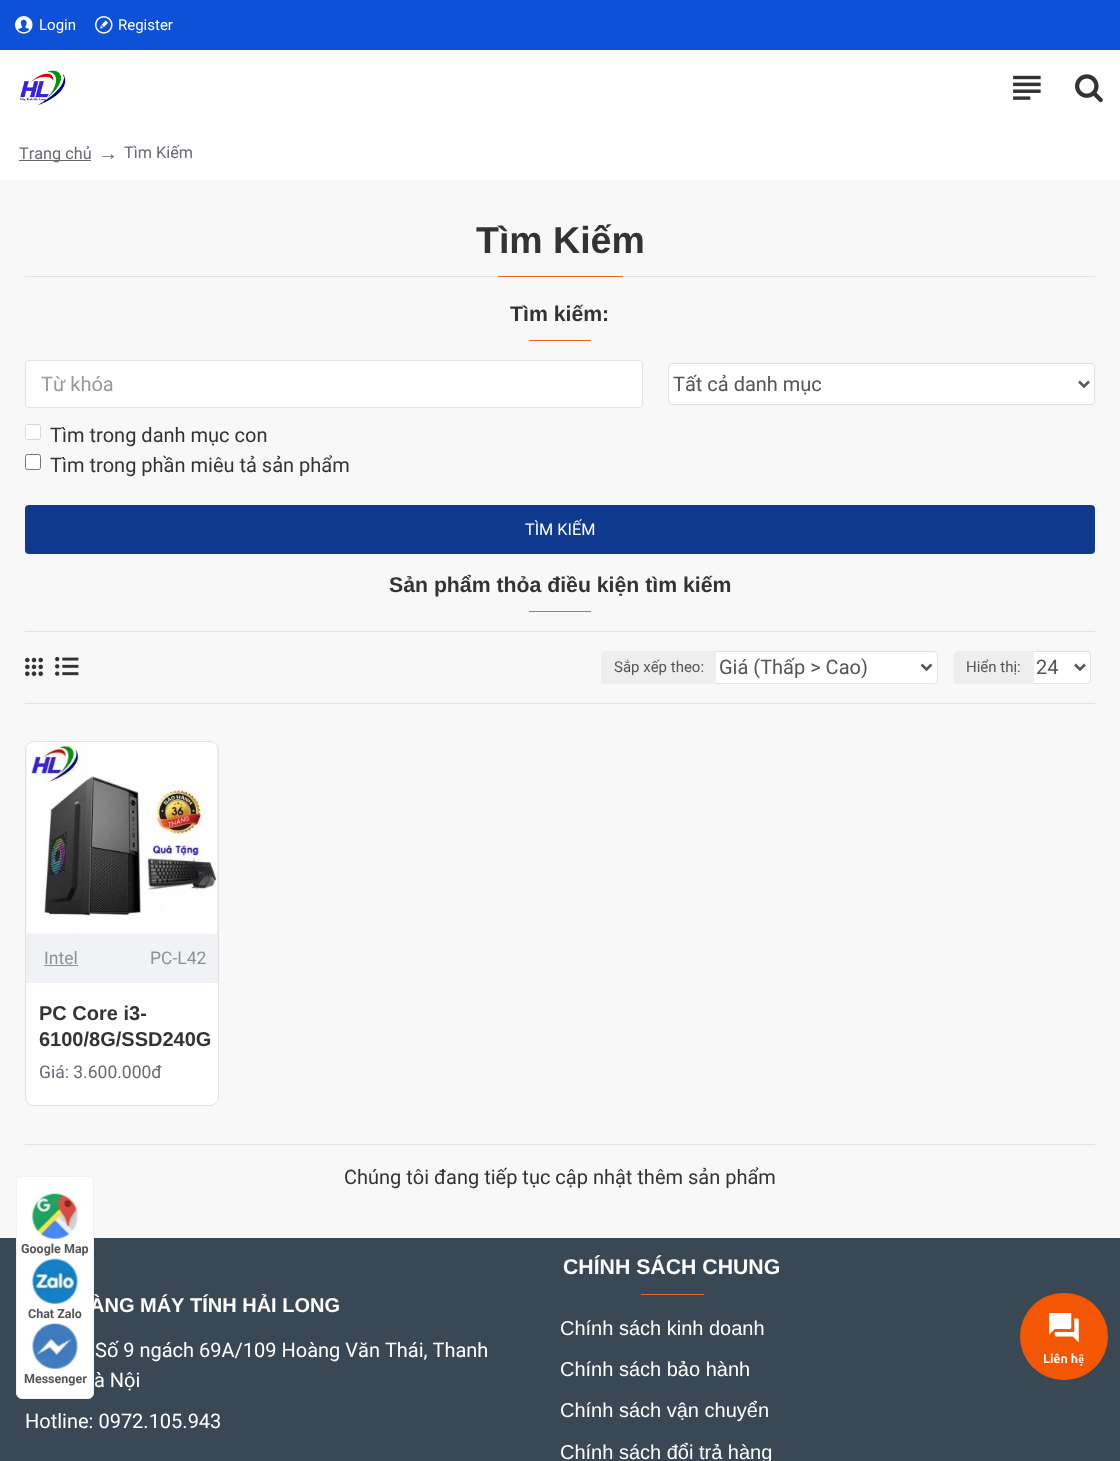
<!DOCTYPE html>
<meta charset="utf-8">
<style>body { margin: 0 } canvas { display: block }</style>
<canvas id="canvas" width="1120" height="1461"></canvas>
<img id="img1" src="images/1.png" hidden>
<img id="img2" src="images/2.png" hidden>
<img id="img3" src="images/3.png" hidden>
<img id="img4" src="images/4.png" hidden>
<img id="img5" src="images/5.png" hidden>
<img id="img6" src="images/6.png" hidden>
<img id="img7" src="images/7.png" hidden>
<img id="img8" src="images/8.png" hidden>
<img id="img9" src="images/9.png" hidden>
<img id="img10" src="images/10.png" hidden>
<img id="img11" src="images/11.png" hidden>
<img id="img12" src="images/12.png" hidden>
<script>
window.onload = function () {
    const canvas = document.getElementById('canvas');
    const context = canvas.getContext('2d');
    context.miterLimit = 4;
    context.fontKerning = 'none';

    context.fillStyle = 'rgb(248, 248, 248)';
    context.fillRect(0, 0, 1120, 1461);
    context.fillStyle = 'rgb(13, 82, 214)';
    context.fillRect(0, 0, 1120, 50);
    context.drawImage(document.getElementById('img1'), 15, 16, 18, 18);
    context.drawImage(document.getElementById('img2'), 95, 16, 18, 18);
    context.fillStyle = 'rgb(255, 255, 255)';
    context.fillRect(0, 50, 1120, 130);
    context.drawImage(document.getElementById('img3'), 20, 70, 46, 36);
    context.drawImage(document.getElementById('img4'), 1013, 75, 28, 25);
    context.drawImage(document.getElementById('img5'), 1075, 74, 28, 29);
    context.fillStyle = 'rgb(105, 105, 115)';
    context.fillRect(19, 160, 72, 1);
    context.fillStyle = 'rgb(226, 226, 226)';
    context.fillRect(25, 276, 1070, 1);
    context.fillStyle = 'rgb(233, 102, 49)';
    context.fillRect(498, 276, 125, 1);
    context.fillRect(529, 340, 62, 1);
    context.fillStyle = 'rgb(255, 255, 255)';
    context.beginPath();
    context.roundRect(25.5, 360.5, 617, 47, 3.5);
    context.fill();
    context.strokeStyle = 'rgb(226, 226, 226)';
    context.stroke();
    context.beginPath();
    context.roundRect(668.5, 363.5, 426, 41, 3.5);
    context.fill();
    context.stroke();
    context.beginPath();
    context.moveTo(1079, 381.5);
    context.lineTo(1084, 386.5);
    context.lineTo(1089, 381.5);
    context.strokeStyle = 'rgb(85, 85, 85)';
    context.lineWidth = 2.5;
    context.stroke();
    context.beginPath();
    context.roundRect(25.5, 424.5, 15, 15, 2);
    context.fill();
    context.strokeStyle = 'rgb(214, 214, 214)';
    context.lineWidth = 1;
    context.stroke();
    context.beginPath();
    context.roundRect(25.5, 454.5, 15, 15, 2);
    context.fill();
    context.strokeStyle = 'rgb(118, 118, 118)';
    context.stroke();
    context.fillStyle = 'rgb(15, 58, 141)';
    context.beginPath();
    context.roundRect(25, 505, 1070, 49, 4);
    context.fill();
    context.fillStyle = 'rgb(233, 102, 49)';
    context.fillRect(529, 611, 62, 1);
    context.fillStyle = 'rgb(226, 226, 226)';
    context.fillRect(25, 631, 1070, 1);
    context.fillRect(25, 703, 1070, 1);
    context.drawImage(document.getElementById('img6'), 25, 657, 18, 19);
    context.drawImage(document.getElementById('img7'), 55, 656, 24, 20);
    context.fillStyle = 'rgb(255, 255, 255)';
    context.beginPath();
    context.roundRect(713.5, 651.5, 224, 32, 3.5);
    context.fill();
    context.strokeStyle = 'rgb(226, 226, 226)';
    context.stroke();
    context.fillStyle = 'rgb(238, 238, 238)';
    context.beginPath();
    context.roundRect(601, 651, 115, 33, 4);
    context.fill();
    context.beginPath();
    context.moveTo(921.5, 664.5);
    context.lineTo(926.5, 669.5);
    context.lineTo(931.5, 664.5);
    context.strokeStyle = 'rgb(85, 85, 85)';
    context.lineWidth = 2.5;
    context.stroke();
    context.fillStyle = 'rgb(255, 255, 255)';
    context.beginPath();
    context.roundRect(1030.5, 651.5, 60, 32, 3.5);
    context.fill();
    context.strokeStyle = 'rgb(226, 226, 226)';
    context.lineWidth = 1;
    context.stroke();
    context.fillStyle = 'rgb(238, 238, 238)';
    context.beginPath();
    context.roundRect(954, 651, 80, 33, 4);
    context.fill();
    context.beginPath();
    context.moveTo(1075, 664.5);
    context.lineTo(1080, 669.5);
    context.lineTo(1085, 664.5);
    context.strokeStyle = 'rgb(85, 85, 85)';
    context.lineWidth = 2.5;
    context.stroke();
    context.fillStyle = 'rgb(255, 255, 255)';
    context.beginPath();
    context.roundRect(25.5, 741.5, 193, 364, 8.5);
    context.fill();
    context.strokeStyle = 'rgb(226, 226, 226)';
    context.lineWidth = 1;
    context.stroke();
    context.fillStyle = 'rgb(238, 238, 238)';
    context.beginPath();
    context.roundRect(26, 743, 192, 191, [8, 8, 0, 0]);
    context.fill();
    context.drawImage(document.getElementById('img8'), 26, 743, 191, 191);
    context.fillStyle = 'rgb(240, 242, 245)';
    context.fillRect(26, 934, 192, 49);
    context.fillStyle = 'rgb(139, 145, 152)';
    context.fillRect(44, 965, 34, 1);
    context.fillStyle = 'rgb(226, 226, 226)';
    context.fillRect(25, 1144, 1070, 1);
    context.fillStyle = 'rgb(58, 71, 84)';
    context.fillRect(0, 1238, 1120, 223);
    context.fillStyle = 'rgb(233, 102, 49)';
    context.fillRect(641, 1294, 63, 1);
    context.fillStyle = 'rgb(243, 87, 4)';
    context.beginPath();
    context.roundRect(1020, 1293, 88, 87, 43.5);
    context.fill();
    context.drawImage(document.getElementById('img9'), 1049, 1313, 30, 30);
    context.fillStyle = 'rgb(255, 255, 255)';
    context.beginPath();
    context.roundRect(16.5, 1176.5, 77, 222, 5.5);
    context.fill();
    context.strokeStyle = 'rgb(242, 242, 242)';
    context.stroke();
    context.drawImage(document.getElementById('img10'), 32, 1193, 46, 46);
    context.drawImage(document.getElementById('img11'), 32, 1258, 46, 46);
    context.drawImage(document.getElementById('img12'), 32, 1323, 46, 46);
    context.font = '15px Roboto';
    context.fillText('Login', 39, 30);
    context.fillText('Register', 118, 30);
    context.font = '16.25px Roboto';
    context.fillStyle = 'rgb(105, 105, 115)';
    context.fillText('Trang chủ', 19, 159);
    context.font = '20px Liberation Serif';
    context.fillText('→', 98, 160);
    context.font = '16.25px Roboto';
    context.fillText('Tìm Kiếm', 124, 158);
    context.font = 'bold 37.5px Liberation Sans';
    context.fillStyle = 'rgb(51, 51, 51)';
    context.fillText('Tìm Kiếm', 476, 253);
    context.font = 'bold 21.25px Liberation Sans';
    context.fillText('Tìm kiếm:', 510, 321);
    context.font = '20px Roboto';
    context.fillStyle = 'rgb(153, 153, 153)';
    context.fillText('Từ khóa', 41, 391);
    context.fillStyle = 'rgb(85, 85, 85)';
    context.fillText('Tất cả danh mục', 673, 391);
    context.fillStyle = 'rgb(51, 51, 51)';
    context.fillText('Tìm trong danh mục con', 50, 442);
    context.fillText('Tìm trong phần miêu tả sản phẩm', 50, 472);
    context.font = '16.25px Roboto';
    context.fillStyle = 'rgb(255, 255, 255)';
    context.fillText('TÌM KIẾM', 525, 535);
    context.font = 'bold 21.25px Liberation Sans';
    context.fillStyle = 'rgb(51, 51, 51)';
    context.fillText('Sản phẩm thỏa điều kiện tìm kiếm', 389, 592);
    context.font = '15px Roboto';
    context.fillStyle = 'rgb(85, 85, 85)';
    context.fillText('Sắp xếp theo:', 614, 672);
    context.font = '20px Roboto';
    context.fillText('Giá (Thấp > Cao)', 719, 674);
    context.font = '15px Roboto';
    context.fillText('Hiển thị:', 966, 672);
    context.font = '20px Roboto';
    context.fillText('24', 1036, 674);
    context.font = '17.5px Roboto';
    context.fillStyle = 'rgb(139, 145, 152)';
    context.fillText('Intel', 44, 964);
    context.fillText('PC-L42', 150, 964);
    context.font = 'bold 20px Liberation Sans';
    context.fillStyle = 'rgb(51, 51, 51)';
    context.fillText('PC Core i3-', 39, 1020);
    context.fillText('6100/8G/SSD240G', 39, 1046);
    context.font = '17.5px Roboto';
    context.fillStyle = 'rgb(105, 105, 115)';
    context.fillText('Giá: 3.600.000đ', 39, 1078);
    context.font = '20px Roboto';
    context.fillStyle = 'rgb(51, 51, 51)';
    context.fillText('Chúng tôi đang tiếp tục cập nhật thêm sản phẩm', 344, 1184);
    context.font = 'bold 20px Liberation Sans';
    context.fillStyle = 'rgb(255, 255, 255)';
    context.fillText('ÀNG MÁY TÍNH HẢI LONG', 90, 1312);
    context.font = '20px Roboto';
    context.fillText('Số 9 ngách 69A/109 Hoàng Văn Thái, Thanh', 95, 1357);
    context.fillText('à Nội', 94, 1387);
    context.fillText('Hotline: 0972.105.943', 25, 1428);
    context.font = 'bold 21.25px Liberation Sans';
    context.fillText('CHÍNH SÁCH CHUNG', 563, 1274);
    context.font = '20px Liberation Sans';
    context.fillText('Chính sách kinh doanh', 560, 1335);
    context.fillText('Chính sách bảo hành', 560, 1376);
    context.fillText('Chính sách vận chuyển', 560, 1417);
    context.fillText('Chính sách đổi trả hàng', 560, 1459);
    context.font = 'bold 12.5px Ubuntu';
    context.fillText('Liên hệ', 1043, 1363);
    context.font = 'bold 12.5px Roboto';
    context.fillStyle = 'rgb(85, 85, 85)';
    context.fillText('Google Map', 21, 1253);
    context.fillText('Chat Zalo', 28, 1318);
    context.fillText('Messenger', 24, 1383);
};
</script>
